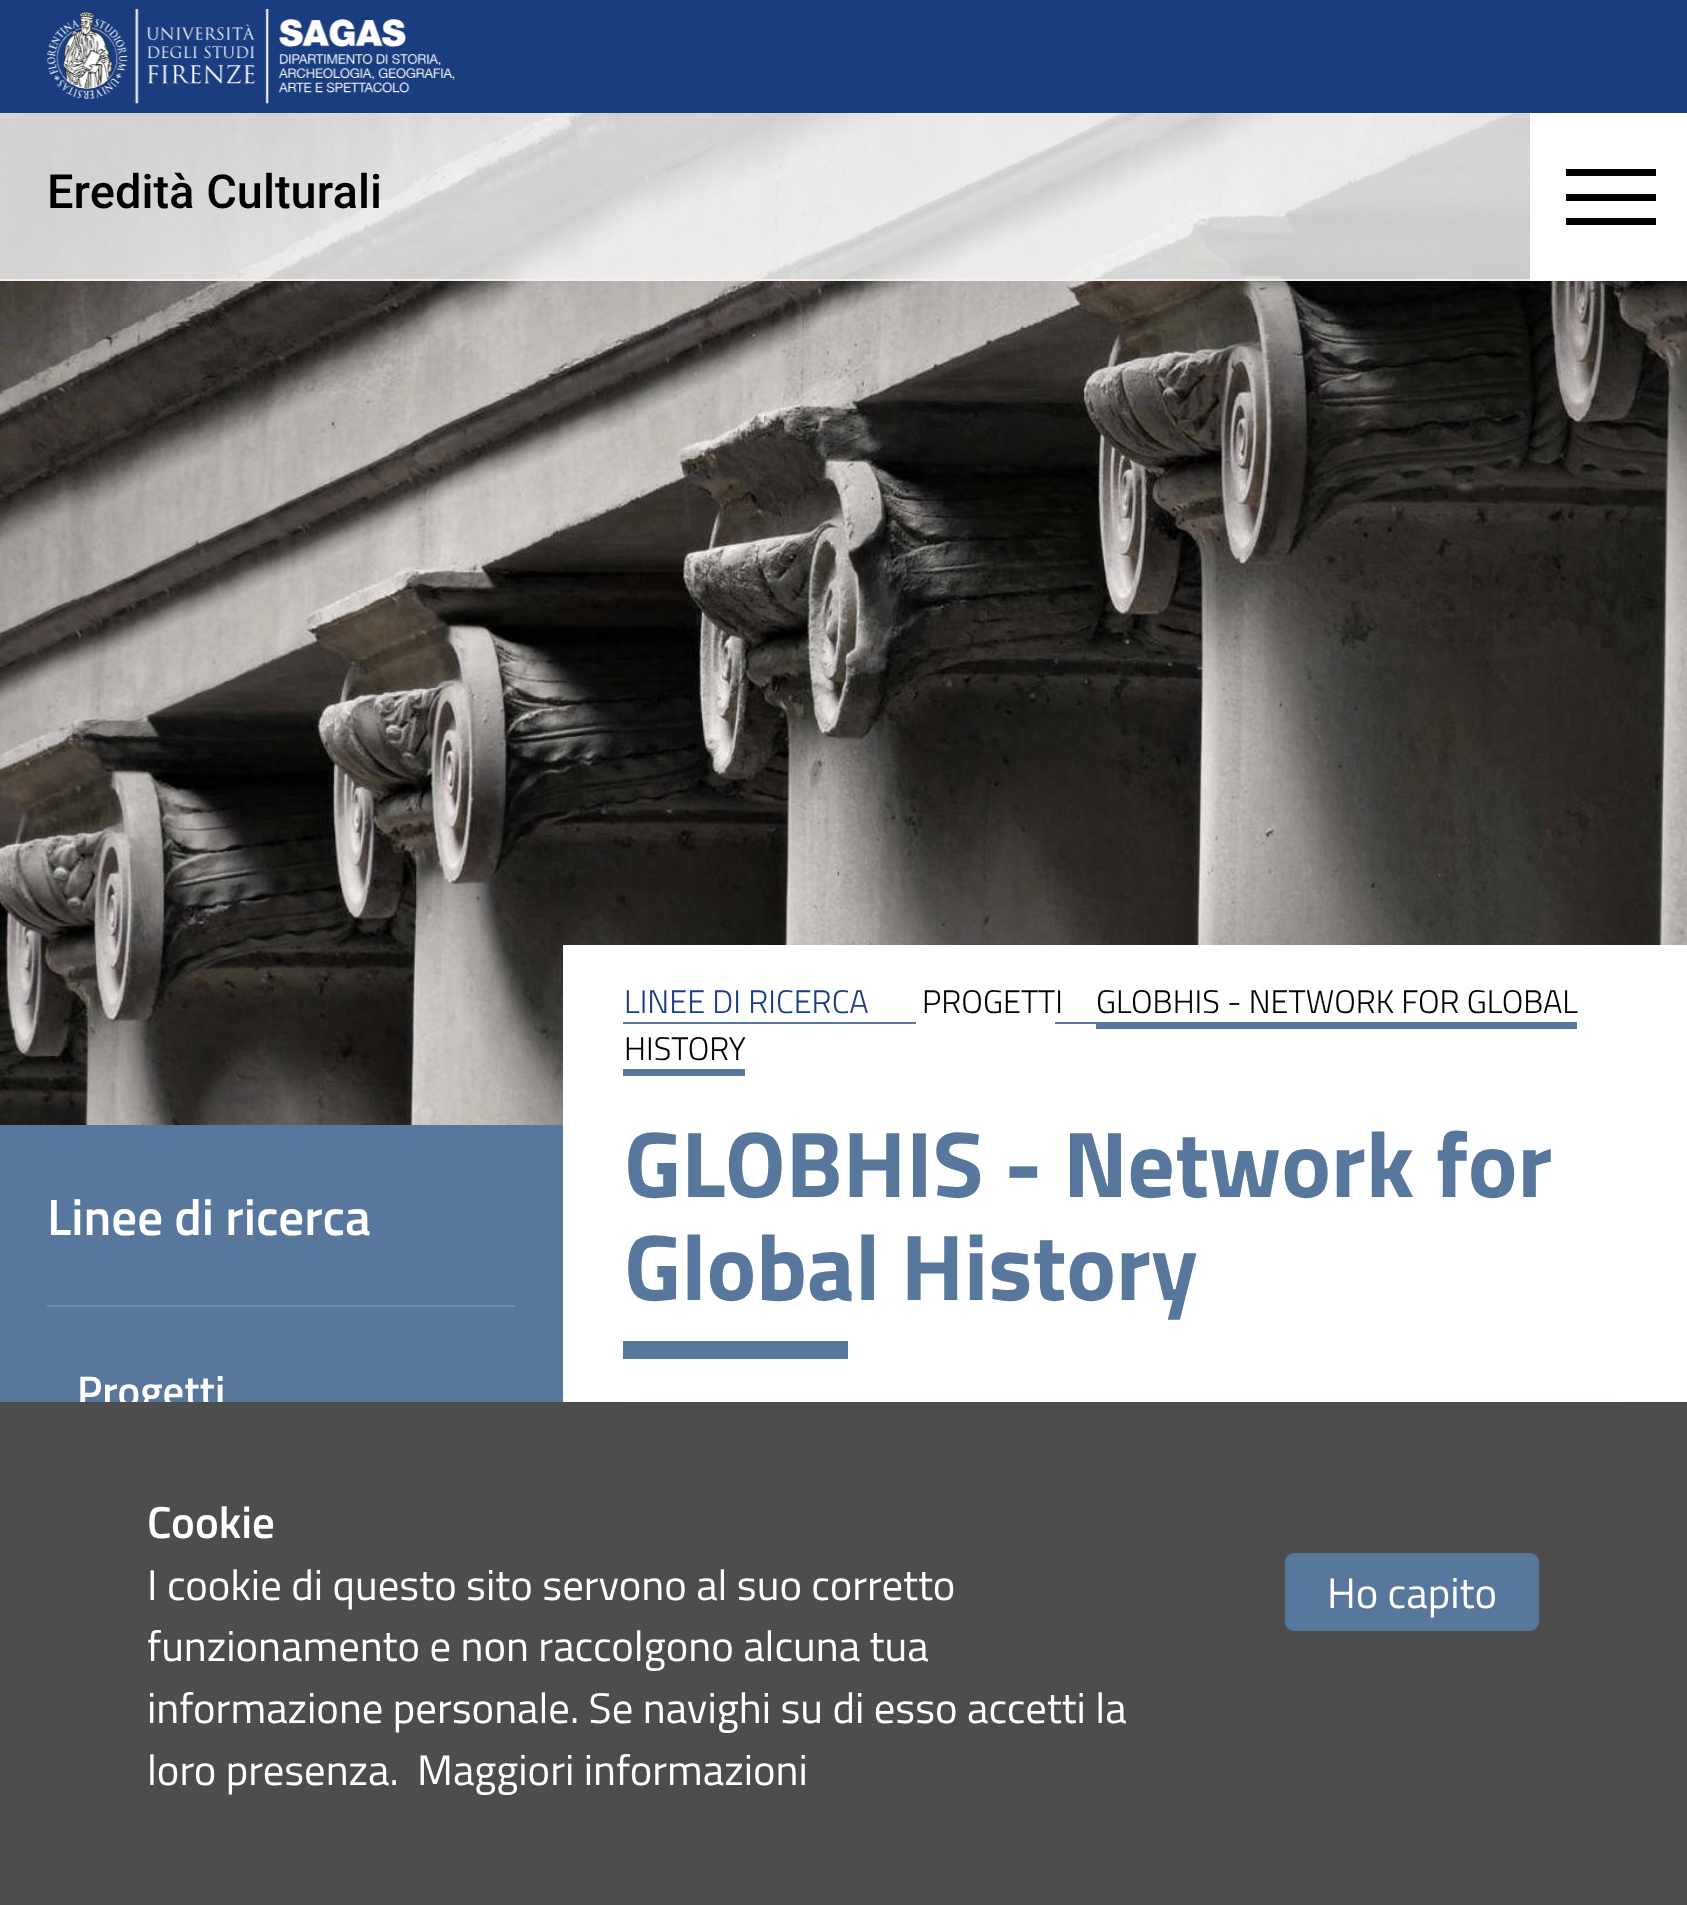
<!DOCTYPE html>
<meta charset="utf-8">
<style>body { margin: 0 } canvas { display: block }</style>
<canvas id="canvas" width="1687" height="1905"></canvas>
<img id="img1" src="images/2.png" hidden>
<img id="img2" src="images/1.png" hidden>
<script>
window.onload = function () {
    const canvas = document.getElementById('canvas');
    const context = canvas.getContext('2d');
    context.miterLimit = 4;
    context.fontKerning = 'normal';

    context.fillStyle = 'rgb(255, 255, 255)';
    context.fillRect(0, 0, 1687, 1905);
    context.drawImage(document.getElementById('img1'), 0, 113, 1687, 1012);
    context.fillStyle = 'rgba(250, 250, 250, 0.8)';
    context.fillRect(0, 113, 1530, 166);
    context.fillStyle = 'rgb(240, 240, 240)';
    context.fillRect(0, 279, 1530, 2);
    context.fillStyle = 'rgb(26, 61, 127)';
    context.fillRect(0, 0, 1687, 113);
    context.drawImage(document.getElementById('img2'), 47, 9, 408, 95);
    context.fillStyle = 'rgb(255, 255, 255)';
    context.fillRect(1530, 113, 157, 168);
    context.fillStyle = 'rgb(0, 0, 0)';
    context.fillRect(1566, 169, 90, 7);
    context.fillRect(1566, 194, 90, 7);
    context.fillRect(1566, 218, 90, 7);
    context.fillStyle = 'rgb(88, 119, 157)';
    context.fillRect(0, 1125, 563, 277);
    context.fillStyle = 'rgb(117, 140, 169)';
    context.fillRect(47, 1305, 468, 2);
    context.fillStyle = 'rgb(255, 255, 255)';
    context.fillRect(563, 945, 1124, 180);
    context.fillStyle = 'rgb(88, 119, 157)';
    context.fillRect(623, 1022, 293, 2);
    context.fillRect(1055, 1022, 48, 2);
    context.fillRect(1096, 1022, 481, 7);
    context.fillRect(623, 1069, 122, 7);
    context.fillRect(623, 1341, 225, 18);
    context.fillStyle = 'rgb(240, 240, 240)';
    context.filter = 'blur(7px)';
    context.beginPath();
    context.rect(626, 1411, 1003, 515);
    context.fill();
    context.filter = 'none';
    context.font = '500 47px Roboto';
    context.fillStyle = 'rgb(0, 0, 0)';
    context.fillText('Eredità Culturali', 47, 208);
    context.font = '600 51px Titillium Web';
    context.fillStyle = 'rgb(255, 255, 255)';
    context.fillText('Linee di ricerca', 47, 1235);
    context.font = '600 42.75px Titillium Web';
    context.fillText('Progetti', 77, 1406);
    context.font = '300 32.6px Titillium Web';
    context.fillStyle = 'rgb(26, 61, 127)';
    context.fillText('LINEE DI RICERCA', 624, 1013);
    context.fillStyle = 'rgb(0, 0, 0)';
    context.fillText('PROGETTI', 922, 1013);
    context.fillText('GLOBHIS - NETWORK FOR GLOBAL', 1096, 1013);
    context.fillText('HISTORY', 624, 1060);
    context.font = 'bold 93.6px Titillium Web';
    context.fillStyle = 'rgb(88, 119, 157)';
    context.fillText('GLOBHIS - Network for', 624, 1197);
    context.fillText('Global History', 624, 1300);
    context.fillStyle = 'rgb(77, 77, 77)';
    context.fillRect(0, 1402, 1687, 503);
    context.font = '600 45px Titillium Web';
    context.fillStyle = 'rgb(255, 255, 255)';
    context.fillText('Cookie', 147, 1538);
    context.font = '42.75px Titillium Web';
    context.fillText('I cookie di questo sito servono al suo corretto', 147, 1600);
    context.fillText('funzionamento e non raccolgono alcuna tua', 147, 1661);
    context.fillText('informazione personale. Se navighi su di esso accetti la', 147, 1723);
    context.fillText('loro presenza.', 147, 1785);
    context.fillText('Maggiori informazioni', 417, 1785);
    context.fillStyle = 'rgb(88, 119, 157)';
    context.beginPath();
    context.roundRect(1285, 1553, 254, 78, 9);
    context.fill();
    context.fillStyle = 'rgb(255, 255, 255)';
    context.fillText('Ho capito', 1327, 1608);
};
</script>
